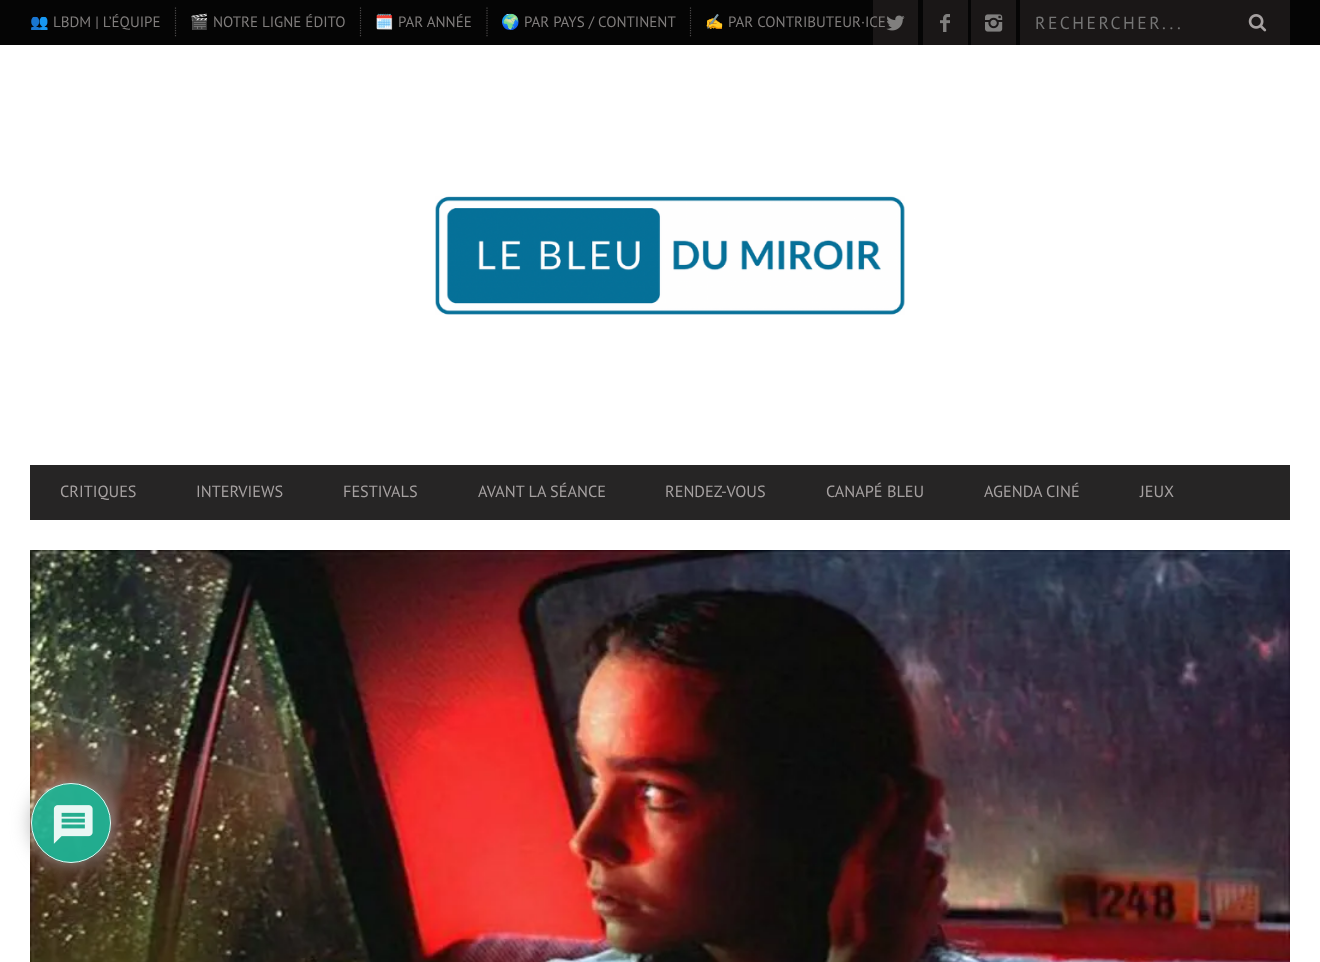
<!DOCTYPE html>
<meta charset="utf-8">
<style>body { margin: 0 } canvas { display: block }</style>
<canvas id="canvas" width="1320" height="962"></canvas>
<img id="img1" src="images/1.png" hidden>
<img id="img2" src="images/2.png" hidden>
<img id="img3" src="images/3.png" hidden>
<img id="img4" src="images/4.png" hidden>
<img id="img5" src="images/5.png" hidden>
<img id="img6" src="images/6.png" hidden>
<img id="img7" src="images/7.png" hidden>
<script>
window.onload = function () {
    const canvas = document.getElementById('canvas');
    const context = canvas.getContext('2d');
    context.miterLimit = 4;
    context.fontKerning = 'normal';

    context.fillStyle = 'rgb(255, 255, 255)';
    context.fillRect(0, 0, 1320, 962);
    context.fillStyle = 'rgb(5, 5, 5)';
    context.fillRect(0, 0, 1320, 45);
    context.beginPath();
    context.moveTo(175.5, 7.5);
    context.lineTo(175.5, 37.5);
    context.strokeStyle = 'rgb(76, 74, 74)';
    context.lineWidth = 1.2;
    context.setLineDash([1.25, 1.25]);
    context.stroke();
    context.beginPath();
    context.moveTo(360.5, 7.5);
    context.lineTo(360.5, 37.5);
    context.stroke();
    context.beginPath();
    context.moveTo(487, 7.5);
    context.lineTo(487, 37.5);
    context.stroke();
    context.beginPath();
    context.moveTo(690.5, 7.5);
    context.lineTo(690.5, 37.5);
    context.stroke();
    context.fillStyle = 'rgb(26, 23, 23)';
    context.fillRect(873, 0, 45, 45);
    context.drawImage(document.getElementById('img1'), 886, 15, 19, 16);
    context.fillRect(923, 0, 45, 45);
    context.drawImage(document.getElementById('img2'), 940, 14, 10, 18);
    context.fillRect(971, 0, 45, 45);
    context.drawImage(document.getElementById('img3'), 985, 14, 18, 18);
    context.fillRect(1020, 0, 270, 45);
    context.drawImage(document.getElementById('img4'), 1248, 14, 19, 18);
    context.drawImage(document.getElementById('img5'), 435, 196, 470, 119);
    context.fillStyle = 'rgb(38, 37, 37)';
    context.fillRect(30, 465, 1260, 55);
    context.drawImage(document.getElementById('img6'), 30, 550, 1260, 412);
    context.save();
    context.beginPath();
    context.moveTo(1, 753);
    context.lineTo(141, 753);
    context.lineTo(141, 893);
    context.lineTo(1, 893);
    context.closePath();
    context.moveTo(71, 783);
    context.bezierCurveTo(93, 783, 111, 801, 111, 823);
    context.bezierCurveTo(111, 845, 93, 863, 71, 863);
    context.bezierCurveTo(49, 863, 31, 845, 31, 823);
    context.bezierCurveTo(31, 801, 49, 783, 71, 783);
    context.closePath();
    context.clip('evenodd');
    context.fillStyle = 'rgba(170, 170, 170, 0.9)';
    context.filter = 'blur(9.5px)';
    context.beginPath();
    context.roundRect(31, 783, 80, 80, 40);
    context.fill();
    context.filter = 'none';
    context.restore();
    context.fillStyle = 'rgba(29, 185, 154, 0.9)';
    context.beginPath();
    context.arc(71, 823, 40, 0, 2 * Math.PI);
    context.fill();
    context.beginPath();
    context.arc(71, 823, 39.5, 0, 2 * Math.PI);
    context.strokeStyle = 'rgba(255, 255, 255, 0.9)';
    context.lineWidth = 1;
    context.setLineDash([]);
    context.stroke();
    context.drawImage(document.getElementById('img7'), 53, 805, 40, 39);
    context.font = '15px Noto Color Emoji';
    context.fillStyle = 'rgb(128, 125, 124)';
    context.fillText('👥', 30, 27);
    context.font = '15px PT Sans';
    context.fillText('LBDM | L’ÉQUIPE', 53, 27);
    context.font = '15px Noto Color Emoji';
    context.fillText('🎬', 190, 27);
    context.font = '15px PT Sans';
    context.fillText('NOTRE LIGNE ÉDITO', 213, 27);
    context.font = '15px Noto Color Emoji';
    context.fillText('🗓️', 375, 27);
    context.font = '15px PT Sans';
    context.fillText('PAR ANNÉE', 398, 27);
    context.font = '15px Noto Color Emoji';
    context.fillText('🌍', 501, 27);
    context.font = '15px PT Sans';
    context.fillText('PAR PAYS / CONTINENT', 524, 27);
    context.font = '15px Noto Color Emoji';
    context.fillText('✍️', 705, 27);
    context.font = '15px PT Sans';
    context.fillText('PAR CONTRIBUTEUR·ICE', 728, 27);
    context.letterSpacing = '2.5px';
    context.font = '17.5px PT Sans';
    context.fillStyle = 'rgb(117, 117, 117)';
    context.fillText('RECHERCHER...', 1035, 29);
    context.letterSpacing = '0px';
    context.font = '16.25px PT Sans';
    context.fillStyle = 'rgb(166, 161, 161)';
    context.fillText('CRITIQUES', 60, 497);
    context.fillText('INTERVIEWS', 196, 497);
    context.fillText('FESTIVALS', 343, 497);
    context.fillText('AVANT LA SÉANCE', 478, 497);
    context.fillText('RENDEZ-VOUS', 665, 497);
    context.fillText('CANAPÉ BLEU', 826, 497);
    context.fillText('AGENDA CINÉ', 984, 497);
    context.fillText('JEUX', 1140, 497);
};
</script>
